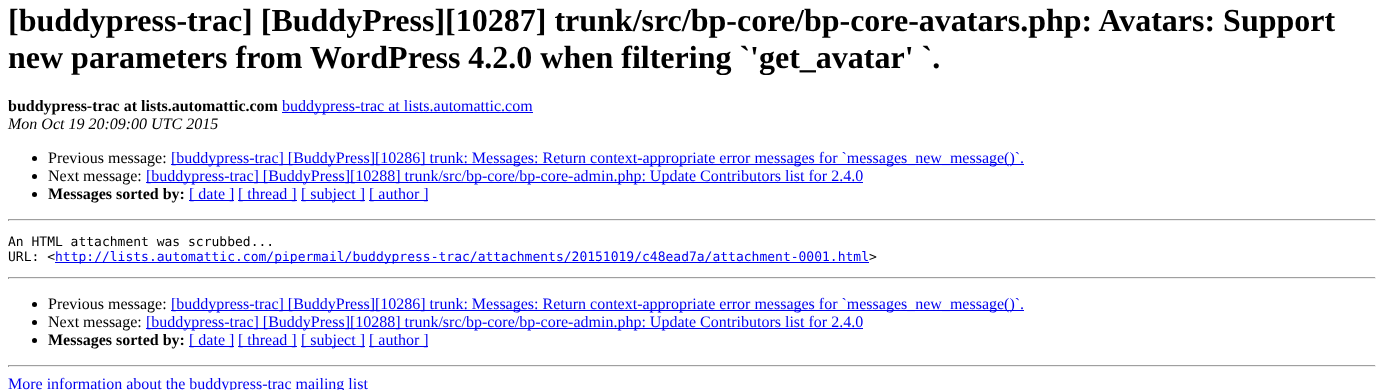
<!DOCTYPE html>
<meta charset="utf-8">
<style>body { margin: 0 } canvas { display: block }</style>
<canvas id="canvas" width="1384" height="390"></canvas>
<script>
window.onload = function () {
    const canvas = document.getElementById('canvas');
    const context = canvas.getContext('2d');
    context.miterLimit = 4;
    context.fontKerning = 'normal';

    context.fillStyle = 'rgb(255, 255, 255)';
    context.fillRect(0, 0, 1384, 390);
    context.fillStyle = 'rgb(0, 0, 238)';
    context.fillRect(282, 112, 251, 1);
    context.fillStyle = 'rgb(0, 0, 0)';
    context.beginPath();
    context.arc(34.5, 158.5, 2.5, 0, 2 * Math.PI);
    context.fill();
    context.fillStyle = 'rgb(0, 0, 238)';
    context.fillRect(171, 164, 853, 1);
    context.fillStyle = 'rgb(0, 0, 0)';
    context.beginPath();
    context.arc(34.5, 176.5, 2.5, 0, 2 * Math.PI);
    context.fill();
    context.fillStyle = 'rgb(0, 0, 238)';
    context.fillRect(146, 182, 717, 1);
    context.fillStyle = 'rgb(0, 0, 0)';
    context.beginPath();
    context.arc(34.5, 194.5, 2.5, 0, 2 * Math.PI);
    context.fill();
    context.fillStyle = 'rgb(0, 0, 238)';
    context.fillRect(189, 200, 45, 1);
    context.fillRect(238, 200, 59, 1);
    context.fillRect(301, 200, 64, 1);
    context.fillRect(369, 200, 59, 1);
    context.fillStyle = 'rgb(159, 159, 159)';
    context.fillRect(8, 219, 1368, 1);
    context.fillStyle = 'rgb(238, 238, 238)';
    context.fillRect(1375, 219, 1, 2);
    context.fillRect(8, 220, 1368, 1);
    context.fillStyle = 'rgb(159, 159, 159)';
    context.fillRect(8, 219, 1, 2);
    context.fillStyle = 'rgb(0, 0, 238)';
    context.fillRect(55, 262, 814, 1);
    context.fillStyle = 'rgb(159, 159, 159)';
    context.fillRect(8, 277, 1368, 1);
    context.fillStyle = 'rgb(238, 238, 238)';
    context.fillRect(1375, 277, 1, 2);
    context.fillRect(8, 278, 1368, 1);
    context.fillStyle = 'rgb(159, 159, 159)';
    context.fillRect(8, 277, 1, 2);
    context.fillStyle = 'rgb(0, 0, 0)';
    context.beginPath();
    context.arc(34.5, 304.5, 2.5, 0, 2 * Math.PI);
    context.fill();
    context.fillStyle = 'rgb(0, 0, 238)';
    context.fillRect(171, 310, 853, 1);
    context.fillStyle = 'rgb(0, 0, 0)';
    context.beginPath();
    context.arc(34.5, 322.5, 2.5, 0, 2 * Math.PI);
    context.fill();
    context.fillStyle = 'rgb(0, 0, 238)';
    context.fillRect(146, 328, 717, 1);
    context.fillStyle = 'rgb(0, 0, 0)';
    context.beginPath();
    context.arc(34.5, 340.5, 2.5, 0, 2 * Math.PI);
    context.fill();
    context.fillStyle = 'rgb(0, 0, 238)';
    context.fillRect(189, 346, 45, 1);
    context.fillRect(238, 346, 59, 1);
    context.fillRect(301, 346, 64, 1);
    context.fillRect(369, 346, 59, 1);
    context.fillStyle = 'rgb(159, 159, 159)';
    context.fillRect(8, 365, 1368, 1);
    context.fillStyle = 'rgb(238, 238, 238)';
    context.fillRect(1375, 365, 1, 2);
    context.fillRect(8, 366, 1368, 1);
    context.fillStyle = 'rgb(159, 159, 159)';
    context.fillRect(8, 365, 1, 2);
    context.font = 'bold 32px Liberation Serif';
    context.fillStyle = 'rgb(0, 0, 0)';
    context.fillText('[buddypress-trac] [BuddyPress][10287] trunk/src/bp-core/bp-core-avatars.php: Avatars: Support', 8, 31);
    context.fillText('new parameters from WordPress 4.2.0 when filtering `\'get_avatar\' `.', 8, 68);
    context.font = 'bold 16px Liberation Serif';
    context.fillText('buddypress-trac at lists.automattic.com', 8, 111);
    context.font = '16px Liberation Serif';
    context.fillStyle = 'rgb(0, 0, 238)';
    context.fillText('buddypress-trac at lists.automattic.com', 282, 111);
    context.font = 'italic 16px Liberation Serif';
    context.fillStyle = 'rgb(0, 0, 0)';
    context.fillText('Mon Oct 19 20:09:00 UTC 2015', 8, 129);
    context.font = '16px Liberation Serif';
    context.fillText('Previous message:', 48, 163);
    context.fillStyle = 'rgb(0, 0, 238)';
    context.fillText('[buddypress-trac] [BuddyPress][10286] trunk: Messages: Return context-appropriate error messages for `messages_new_message()`.', 171, 163);
    context.fillStyle = 'rgb(0, 0, 0)';
    context.fillText('Next message:', 48, 181);
    context.fillStyle = 'rgb(0, 0, 238)';
    context.fillText('[buddypress-trac] [BuddyPress][10288] trunk/src/bp-core/bp-core-admin.php: Update Contributors list for 2.4.0', 146, 181);
    context.font = 'bold 16px Liberation Serif';
    context.fillStyle = 'rgb(0, 0, 0)';
    context.fillText('Messages sorted by:', 48, 199);
    context.font = '16px Liberation Serif';
    context.fillStyle = 'rgb(0, 0, 238)';
    context.fillText('[ date ]', 189, 199);
    context.fillText('[ thread ]', 238, 199);
    context.fillText('[ subject ]', 301, 199);
    context.fillText('[ author ]', 369, 199);
    context.font = '13px DejaVu Sans Mono';
    context.fillStyle = 'rgb(0, 0, 0)';
    context.fillText('An HTML attachment was scrubbed...', 8, 246);
    context.fillText('URL: <', 8, 261);
    context.fillStyle = 'rgb(0, 0, 238)';
    context.fillText('http://lists.automattic.com/pipermail/buddypress-trac/attachments/20151019/c48ead7a/attachment-0001.html', 55, 261);
    context.fillStyle = 'rgb(0, 0, 0)';
    context.fillText('>', 869, 261);
    context.font = '16px Liberation Serif';
    context.fillText('Previous message:', 48, 309);
    context.fillStyle = 'rgb(0, 0, 238)';
    context.fillText('[buddypress-trac] [BuddyPress][10286] trunk: Messages: Return context-appropriate error messages for `messages_new_message()`.', 171, 309);
    context.fillStyle = 'rgb(0, 0, 0)';
    context.fillText('Next message:', 48, 327);
    context.fillStyle = 'rgb(0, 0, 238)';
    context.fillText('[buddypress-trac] [BuddyPress][10288] trunk/src/bp-core/bp-core-admin.php: Update Contributors list for 2.4.0', 146, 327);
    context.font = 'bold 16px Liberation Serif';
    context.fillStyle = 'rgb(0, 0, 0)';
    context.fillText('Messages sorted by:', 48, 345);
    context.font = '16px Liberation Serif';
    context.fillStyle = 'rgb(0, 0, 238)';
    context.fillText('[ date ]', 189, 345);
    context.fillText('[ thread ]', 238, 345);
    context.fillText('[ subject ]', 301, 345);
    context.fillText('[ author ]', 369, 345);
    context.fillText('More information about the buddypress-trac mailing list', 8, 389);
};
</script>
